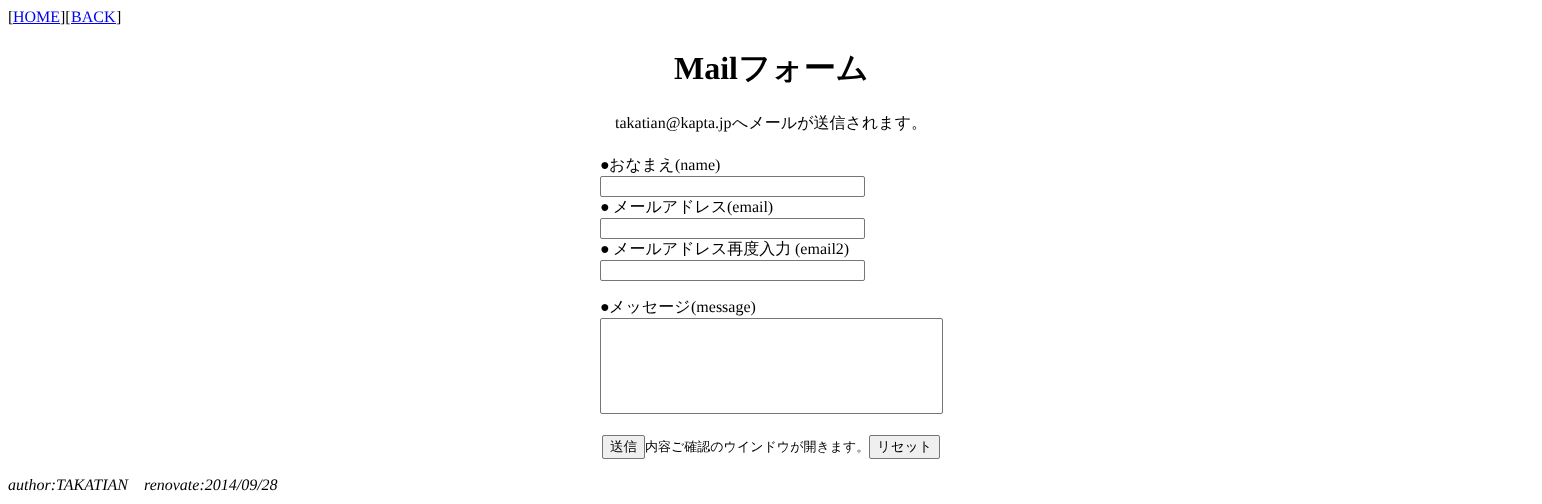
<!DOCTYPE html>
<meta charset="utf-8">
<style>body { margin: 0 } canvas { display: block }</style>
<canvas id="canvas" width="1542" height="504"></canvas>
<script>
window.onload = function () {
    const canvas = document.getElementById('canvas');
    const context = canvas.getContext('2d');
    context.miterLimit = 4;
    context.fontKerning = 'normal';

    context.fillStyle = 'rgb(255, 255, 255)';
    context.fillRect(0, 0, 1542, 504);
    context.fillStyle = 'rgb(0, 0, 238)';
    context.fillRect(13, 23, 47, 1);
    context.fillRect(71, 23, 45, 1);
    context.beginPath();
    context.roundRect(600.5, 176.5, 264, 20, 1.5);
    context.strokeStyle = 'rgb(118, 118, 118)';
    context.stroke();
    context.beginPath();
    context.roundRect(600.5, 218.5, 264, 20, 1.5);
    context.stroke();
    context.beginPath();
    context.roundRect(600.5, 260.5, 264, 20, 1.5);
    context.stroke();
    context.beginPath();
    context.roundRect(600.5, 318.5, 342, 95, 1.5);
    context.stroke();
    context.fillStyle = 'rgb(239, 239, 239)';
    context.beginPath();
    context.roundRect(602.5, 435.5, 42, 23, 1.5);
    context.fill();
    context.stroke();
    context.beginPath();
    context.roundRect(869.5, 435.5, 70, 23, 1.5);
    context.fill();
    context.stroke();
    context.font = '16px Liberation Serif';
    context.fillStyle = 'rgb(0, 0, 0)';
    context.fillText('[', 8, 22);
    context.fillStyle = 'rgb(0, 0, 238)';
    context.fillText('HOME', 13, 22);
    context.fillStyle = 'rgb(0, 0, 0)';
    context.fillText('][', 60, 22);
    context.fillStyle = 'rgb(0, 0, 238)';
    context.fillText('BACK', 71, 22);
    context.fillStyle = 'rgb(0, 0, 0)';
    context.fillText(']', 116, 22);
    context.font = 'bold 32px Liberation Serif';
    context.fillText('Mail', 674, 79);
    context.font = 'bold 32px WenQuanYi Zen Hei';
    context.fillText('フォーム', 738, 79);
    context.font = '16px Liberation Serif';
    context.fillText('takatian@kapta.jp', 615, 128);
    context.font = '500 16px WenQuanYi Zen Hei';
    context.fillText('へメールが送信されます。', 732, 128);
    context.font = '16px Liberation Serif';
    context.fillText('●', 600, 170);
    context.font = '500 16px WenQuanYi Zen Hei';
    context.fillText('おなまえ', 609, 170);
    context.font = '16px Liberation Serif';
    context.fillText('(name)', 675, 170);
    context.fillText('●', 600, 212);
    context.font = '500 16px WenQuanYi Zen Hei';
    context.fillText('メールアドレス', 613, 212);
    context.font = '16px Liberation Serif';
    context.fillText('(email)', 727, 212);
    context.fillText('●', 600, 254);
    context.font = '500 16px WenQuanYi Zen Hei';
    context.fillText('メールアドレス再度入力', 613, 254);
    context.font = '16px Liberation Serif';
    context.fillText('(email2)', 795, 254);
    context.fillText('●', 600, 312);
    context.font = '500 16px WenQuanYi Zen Hei';
    context.fillText('メッセージ', 609, 312);
    context.font = '16px Liberation Serif';
    context.fillText('(message)', 691, 312);
    context.font = '500 13.5px WenQuanYi Zen Hei';
    context.fillText('送信', 610, 451);
    context.font = '500 13px WenQuanYi Zen Hei';
    context.fillText('内容ご確認のウインドウが開きます。', 645, 451);
    context.font = '500 13.5px WenQuanYi Zen Hei';
    context.fillText('リセット', 877, 451);
    context.font = 'italic 16px Liberation Serif';
    context.fillText('author:TAKATIAN', 8, 490);
    context.fillText('renovate:2014/09/28', 144, 490);
};
</script>
